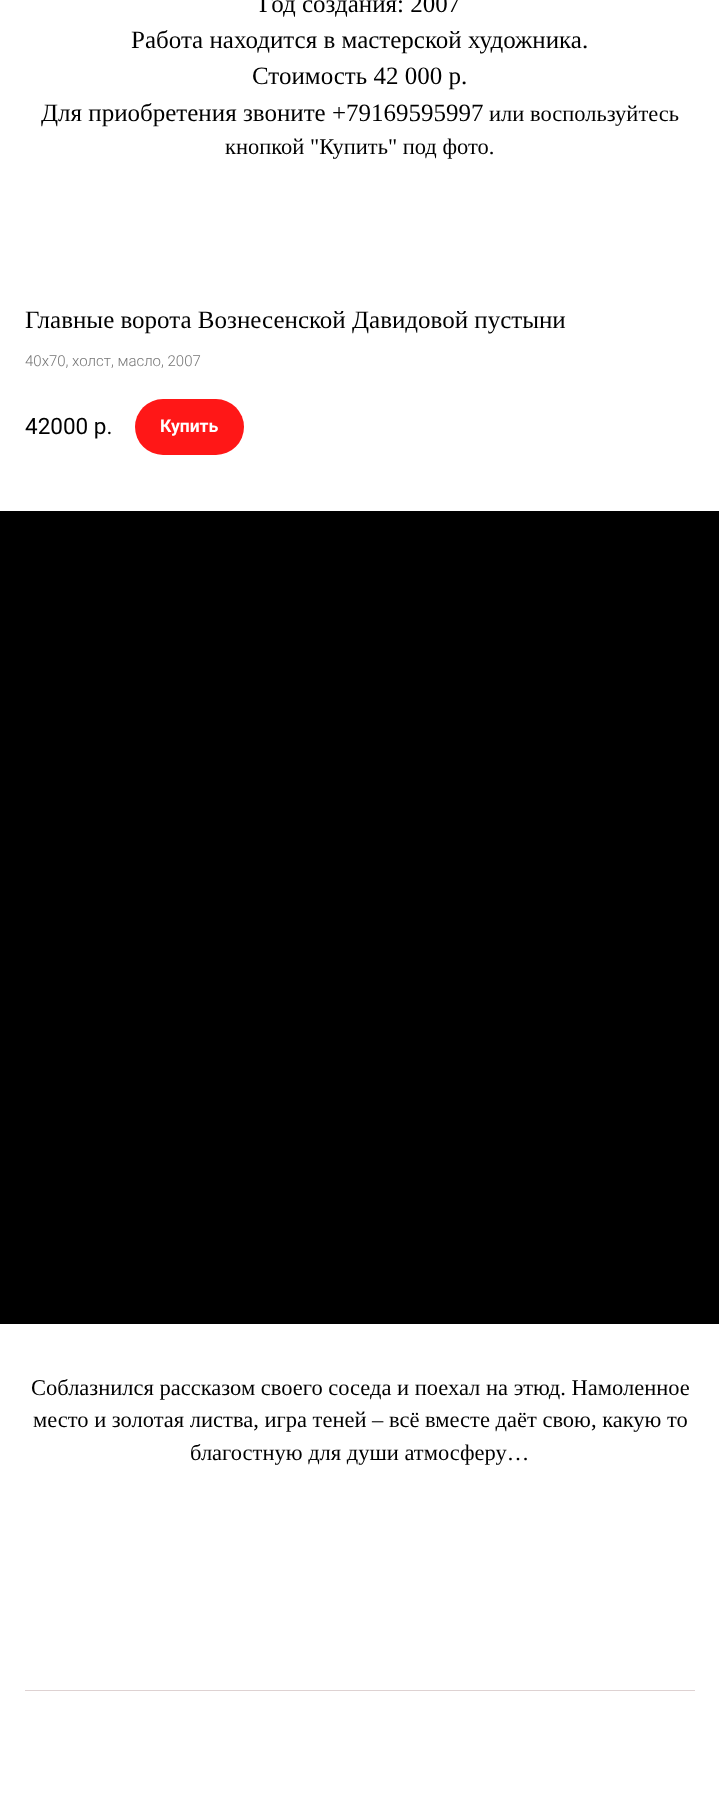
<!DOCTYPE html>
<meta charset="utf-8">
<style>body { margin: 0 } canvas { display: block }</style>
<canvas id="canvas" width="719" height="1813"></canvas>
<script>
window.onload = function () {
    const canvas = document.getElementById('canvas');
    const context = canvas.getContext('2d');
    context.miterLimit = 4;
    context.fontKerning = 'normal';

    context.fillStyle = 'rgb(255, 255, 255)';
    context.fillRect(0, 0, 719, 1813);
    context.fillStyle = 'rgb(255, 23, 23)';
    context.beginPath();
    context.roundRect(135, 399, 109, 56, 28);
    context.fill();
    context.fillStyle = 'rgb(0, 0, 0)';
    context.fillRect(0, 511, 719, 813);
    context.fillStyle = 'rgb(222, 210, 210)';
    context.fillRect(25, 1690, 670, 1);
    context.font = '25px Liberation Serif';
    context.fillStyle = 'rgb(0, 0, 0)';
    context.fillText('Год создания: 2007', 259, 12);
    context.fillText('Работа находится в мастерской художника.', 131, 48);
    context.fillText('Стоимость 42 000 р.', 252, 84);
    context.fillText('Для приобретения звоните +79169595997', 41, 121);
    context.font = '22.5px Liberation Serif';
    context.fillText('или воспользуйтесь', 489, 121);
    context.fillText('кнопкой "Купить" под фото.', 225, 154);
    context.font = '25px Liberation Serif';
    context.fillText('Главные ворота Вознесенской Давидовой пустыни', 25, 328);
    context.font = '300 15px Roboto';
    context.fillStyle = 'rgb(119, 119, 119)';
    context.fillText('40х70, холст, масло, 2007', 25, 366);
    context.font = '22.5px Roboto';
    context.fillStyle = 'rgb(0, 0, 0)';
    context.fillText('42000 р.', 25, 434);
    context.font = 'bold 17.5px Roboto';
    context.fillStyle = 'rgb(255, 255, 255)';
    context.fillText('Купить', 160, 432);
    context.font = '22.5px Liberation Serif';
    context.fillStyle = 'rgb(0, 0, 0)';
    context.fillText('Соблазнился рассказом своего соседа и поехал на этюд. Намоленное', 31, 1395);
    context.fillText('место и золотая листва, игра теней – всё вместе даёт свою, какую то', 33, 1427);
    context.fillText('благостную для души атмосферу…', 190, 1460);
};
</script>
